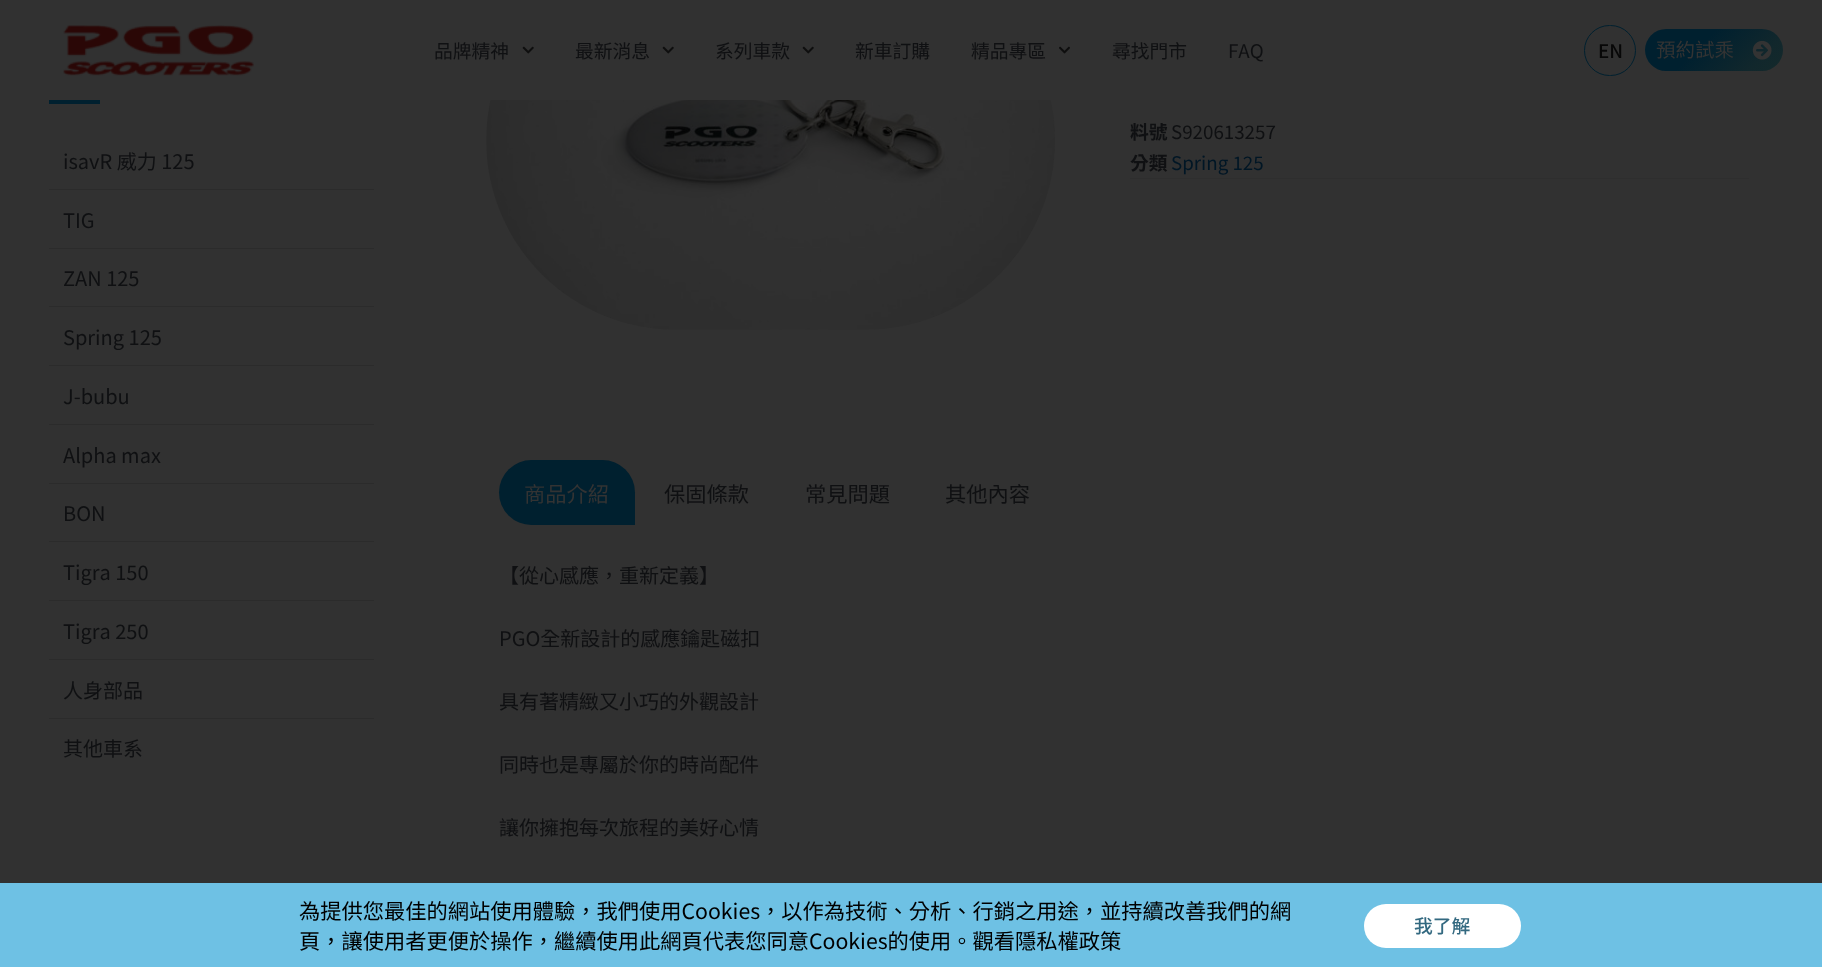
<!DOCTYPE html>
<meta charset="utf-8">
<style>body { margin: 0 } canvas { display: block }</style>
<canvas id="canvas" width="1822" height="967"></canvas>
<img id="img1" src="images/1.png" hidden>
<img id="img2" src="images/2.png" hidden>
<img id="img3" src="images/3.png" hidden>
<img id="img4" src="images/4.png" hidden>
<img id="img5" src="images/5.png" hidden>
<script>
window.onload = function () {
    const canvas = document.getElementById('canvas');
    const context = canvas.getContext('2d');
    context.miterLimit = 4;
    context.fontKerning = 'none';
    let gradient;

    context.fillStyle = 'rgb(49, 49, 49)';
    context.fillRect(0, 0, 1822, 967);
    context.drawImage(document.getElementById('img1'), 63, 25, 191, 51);
    context.drawImage(document.getElementById('img2'), 522, 46, 12, 8);
    context.drawImage(document.getElementById('img2'), 662, 46, 12, 8);
    context.drawImage(document.getElementById('img2'), 802, 46, 12, 8);
    context.drawImage(document.getElementById('img3'), 1059, 46, 11, 8);
    context.beginPath();
    context.roundRect(1584.5, 25.5, 51, 50, 25);
    context.strokeStyle = 'rgb(0, 32, 47)';
    context.stroke();
    gradient = context.createLinearGradient(1669, 5, 1759, 95);
    gradient.addColorStop(0.4, 'rgb(0, 32, 47)');
    gradient.addColorStop(0.8, 'rgb(17, 39, 44)');
    gradient.addColorStop(1, 'rgb(20, 41, 43)');
    context.fillStyle = gradient;
    context.beginPath();
    context.roundRect(1645, 29, 138, 42, 21);
    context.fill();
    context.drawImage(document.getElementById('img4'), 1752, 40, 20, 20);
    context.fillStyle = 'rgb(0, 32, 47)';
    context.fillRect(49, 100, 51, 4);
    context.fillStyle = 'rgb(43, 43, 43)';
    context.fillRect(49, 189, 325, 1);
    context.fillRect(49, 248, 325, 1);
    context.fillRect(49, 306, 325, 1);
    context.fillRect(49, 365, 325, 1);
    context.fillRect(49, 424, 325, 1);
    context.fillRect(49, 483, 325, 1);
    context.fillRect(49, 541, 325, 1);
    context.fillRect(49, 600, 325, 1);
    context.fillRect(49, 659, 325, 1);
    context.fillRect(49, 718, 325, 1);
    context.drawImage(document.getElementById('img5'), 486, 100, 569, 230);
    context.fillStyle = 'rgb(46, 46, 46)';
    context.fillRect(1130, 178, 619, 1);
    context.fillStyle = 'rgb(0, 32, 47)';
    context.beginPath();
    context.roundRect(499, 460, 136, 65, [32.5, 32.5, 0, 32.5]);
    context.fill();
    context.fillStyle = 'rgb(110, 193, 228)';
    context.fillRect(0, 883, 1822, 84);
    context.fillStyle = 'rgb(255, 255, 255)';
    context.beginPath();
    context.roundRect(1364, 904, 157, 44, 22);
    context.fill();
    context.font = '18.75px Noto Sans TC';
    context.fillStyle = 'rgb(15, 16, 18)';
    context.fillText('品牌精神', 434, 58);
    context.fillText('最新消息', 575, 58);
    context.fillText('系列車款', 715, 58);
    context.fillText('新車訂購', 855, 58);
    context.fillText('精品專區', 971, 58);
    context.fillText('尋找門市', 1112, 58);
    context.fillText('FAQ', 1228, 58);
    context.font = '500 18.75px Noto Sans TC';
    context.fillStyle = 'rgb(7, 7, 7)';
    context.fillText('EN', 1598, 58);
    context.font = '19.5px Noto Sans TC';
    context.fillStyle = 'rgb(51, 51, 51)';
    context.fillText('預約試乘', 1656, 57);
    context.font = '20px Noto Sans TC';
    context.fillStyle = 'rgb(15, 16, 18)';
    context.fillText('isavR 威力 125', 63, 169);
    context.fillText('TIG', 63, 228);
    context.fillText('ZAN 125', 63, 286);
    context.fillText('Spring 125', 63, 345);
    context.fillText('J-bubu', 63, 404);
    context.fillText('Alpha max', 63, 463);
    context.fillText('BON', 63, 521);
    context.fillText('Tigra 150', 63, 580);
    context.fillText('Tigra 250', 63, 639);
    context.fillText('人身部品', 63, 698);
    context.fillText('其他車系', 63, 756);
    context.font = 'bold 18.75px Noto Sans TC';
    context.fillText('料號', 1130, 139);
    context.font = '18.75px Noto Sans TC';
    context.fillText('S920613257', 1171, 139);
    context.font = 'bold 18.75px Noto Sans TC';
    context.fillText('分類', 1130, 170);
    context.font = '18.75px Noto Sans TC';
    context.fillStyle = 'rgb(0, 22, 37)';
    context.fillText('Spring 125', 1171, 170);
    context.font = '21.25px Noto Sans TC';
    context.fillStyle = 'rgb(51, 51, 51)';
    context.fillText('商品介紹', 524, 502);
    context.fillStyle = 'rgb(15, 16, 18)';
    context.fillText('保固條款', 664, 502);
    context.fillText('常見問題', 805, 502);
    context.fillText('其他內容', 945, 502);
    context.font = '20px Noto Sans TC';
    context.fillText('【從心感應，重新定義】', 499, 583);
    context.fillText('PGO全新設計的感應鑰匙磁扣', 499, 646);
    context.fillText('具有著精緻又小巧的外觀設計', 499, 709);
    context.fillText('同時也是專屬於你的時尚配件', 499, 772);
    context.fillText('讓你擁抱每次旅程的美好心情', 499, 835);
    context.font = '21.25px Noto Sans TC';
    context.fillStyle = 'rgb(0, 0, 0)';
    context.fillText('為提供您最佳的網站使用體驗，我們使用Cookies，以作為技術、分析、行銷之用途，並持續改善我們的網', 299, 919);
    context.fillText('頁，讓使用者更便於操作，繼續使用此網頁代表您同意Cookies的使用。觀看隱私權政策', 299, 949);
    context.font = '500 18.75px Noto Sans TC';
    context.fillStyle = 'rgb(51, 105, 128)';
    context.fillText('我了解', 1414, 933);
};
</script>
